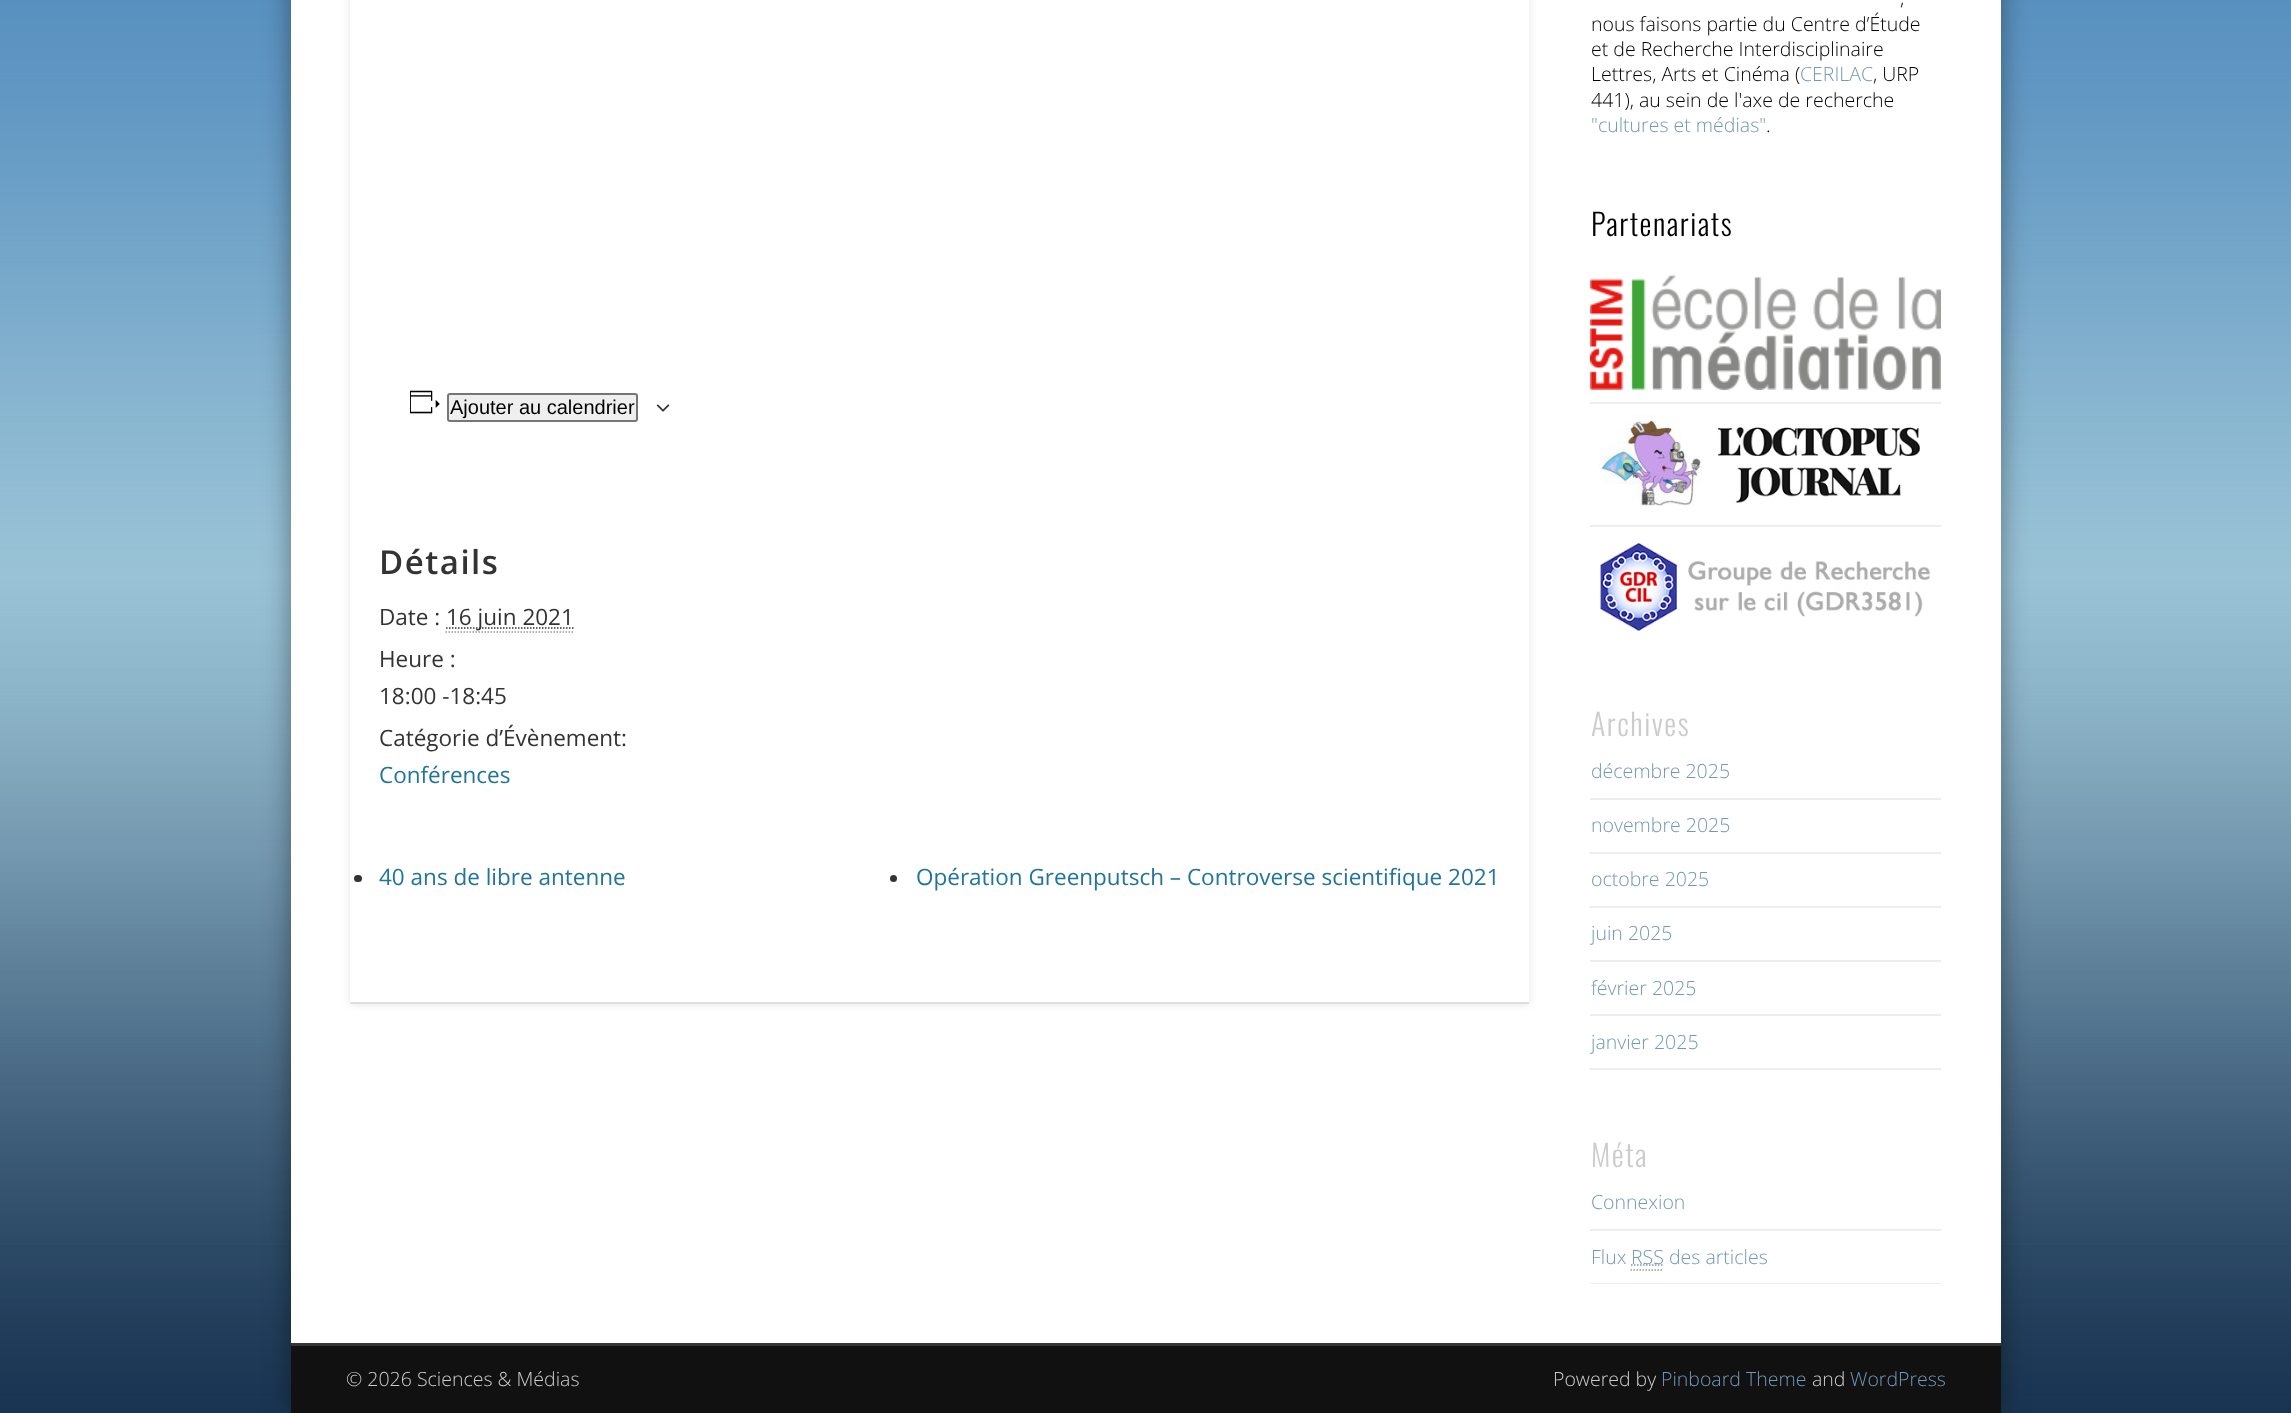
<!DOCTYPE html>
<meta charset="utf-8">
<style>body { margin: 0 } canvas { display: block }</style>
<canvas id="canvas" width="2291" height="1413"></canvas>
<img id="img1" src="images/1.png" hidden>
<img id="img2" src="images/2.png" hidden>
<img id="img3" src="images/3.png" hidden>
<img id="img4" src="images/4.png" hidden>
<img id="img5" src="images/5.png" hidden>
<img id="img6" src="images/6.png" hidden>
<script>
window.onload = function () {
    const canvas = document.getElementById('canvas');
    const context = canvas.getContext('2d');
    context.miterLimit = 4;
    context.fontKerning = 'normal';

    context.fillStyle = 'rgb(255, 255, 255)';
    context.fillRect(0, 0, 2291, 1413);
    context.drawImage(document.getElementById('img1'), 0, 0, 2291, 1413);
    context.fillStyle = 'rgba(0, 0, 0, 0.4)';
    context.filter = 'blur(13.5px)';
    context.beginPath();
    context.rect(291, -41, 1710, 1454);
    context.fill();
    context.filter = 'none';
    context.fillStyle = 'rgb(255, 255, 255)';
    context.fillRect(291, 0, 1710, 1343);
    context.fillStyle = 'rgba(0, 0, 0, 0.1)';
    context.filter = 'blur(4px)';
    context.beginPath();
    context.rect(350, -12, 1179, 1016);
    context.fill();
    context.filter = 'none';
    context.fillStyle = 'rgb(255, 255, 255)';
    context.fillRect(350, 0, 1179, 1002);
    context.fillStyle = 'rgb(222, 222, 222)';
    context.fillRect(350, 1002, 1179, 2);
    context.drawImage(document.getElementById('img2'), 410, 390, 30, 24);
    context.fillStyle = 'rgb(239, 239, 239)';
    context.beginPath();
    context.roundRect(448, 394, 189, 27, 2);
    context.fill();
    context.strokeStyle = 'rgb(118, 118, 118)';
    context.lineWidth = 2;
    context.stroke();
    context.drawImage(document.getElementById('img3'), 656, 404, 14, 8);
    context.beginPath();
    context.moveTo(445.5, 632);
    context.lineTo(574.5, 632);
    context.strokeStyle = 'rgb(153, 153, 153)';
    context.lineWidth = 1.5;
    context.setLineDash([1.5, 1.5]);
    context.stroke();
    context.beginPath();
    context.moveTo(446, 628);
    context.lineTo(574, 628);
    context.strokeStyle = 'rgb(51, 51, 51)';
    context.stroke();
    context.fillStyle = 'rgb(51, 51, 51)';
    context.beginPath();
    context.roundRect(354, 875, 8, 7, 3.5);
    context.fill();
    context.beginPath();
    context.arc(893.5, 878.5, 3.5, 0, 2 * Math.PI);
    context.fill();
    context.drawImage(document.getElementById('img4'), 1590, 274, 351, 116);
    context.fillStyle = 'rgb(238, 238, 238)';
    context.fillRect(1590, 402, 351, 2);
    context.drawImage(document.getElementById('img5'), 1599, 414, 321, 92);
    context.fillRect(1590, 525, 351, 2);
    context.drawImage(document.getElementById('img6'), 1600, 543, 330, 88);
    context.fillRect(1590, 798, 351, 2);
    context.fillRect(1590, 852, 351, 2);
    context.fillRect(1590, 906, 351, 2);
    context.fillRect(1590, 960, 351, 2);
    context.fillRect(1590, 1014, 351, 2);
    context.fillRect(1590, 1068, 351, 2);
    context.fillRect(1590, 1229, 351, 2);
    context.fillRect(1590, 1283, 351, 1);
    context.beginPath();
    context.moveTo(1630.5, 1270);
    context.lineTo(1663.5, 1270);
    context.strokeStyle = 'rgb(153, 153, 153)';
    context.stroke();
    context.beginPath();
    context.moveTo(1631, 1265);
    context.lineTo(1664, 1265);
    context.strokeStyle = 'rgb(117, 151, 185)';
    context.stroke();
    context.fillStyle = 'rgb(54, 54, 54)';
    context.fillRect(291, 1343, 1710, 1);
    context.fillStyle = 'rgb(17, 17, 17)';
    context.fillRect(291, 1346, 1710, 67);
    context.fillStyle = 'rgb(52, 52, 52)';
    context.fillRect(291, 1344, 1710, 2);
    context.font = '20px Liberation Sans';
    context.fillStyle = 'rgb(0, 0, 0)';
    context.fillText('Ajouter au calendrier', 450, 414);
    context.letterSpacing = '1.5px';
    context.font = '600 33px Open Sans';
    context.fillStyle = 'rgb(51, 51, 51)';
    context.fillText('Détails', 379, 574);
    context.letterSpacing = '0px';
    context.font = '22.5px Open Sans';
    context.fillText('Date :', 379, 625);
    context.fillText('16 juin 2021', 446, 625);
    context.fillText('Heure :', 379, 667);
    context.fillText('18:00 -18:45', 379, 704);
    context.fillText('Catégorie d’Évènement:', 379, 746);
    context.fillStyle = 'rgb(33, 117, 155)';
    context.fillText('Conférences', 379, 783);
    context.fillText('40 ans de libre antenne', 379, 885);
    context.fillText('Opération Greenputsch – Controverse scientifique 2021', 916, 885);
    context.font = '300 19.5px Open Sans';
    context.fillStyle = 'rgb(0, 0, 0)';
    context.fillText(',', 1900, 5);
    context.fillText('nous faisons partie du Centre d’Étude', 1591, 31);
    context.fillText('et de Recherche Interdisciplinaire', 1591, 56);
    context.fillText('Lettres, Arts et Cinéma (', 1591, 81);
    context.fillStyle = 'rgb(117, 151, 185)';
    context.fillText('CERILAC', 1800, 81);
    context.fillStyle = 'rgb(0, 0, 0)';
    context.fillText(', URP', 1873, 81);
    context.fillText('441), au sein de l\'axe de recherche', 1591, 107);
    context.fillStyle = 'rgb(117, 151, 185)';
    context.fillText('"cultures et médias"', 1591, 132);
    context.fillStyle = 'rgb(0, 0, 0)';
    context.fillText('.', 1766, 132);
    context.letterSpacing = '1.5px';
    context.font = '300 30px Oswald';
    context.fillText('Partenariats', 1591, 236);
    context.fillStyle = 'rgb(204, 204, 204)';
    context.fillText('Archives', 1591, 736);
    context.letterSpacing = '0px';
    context.font = '300 19.5px Open Sans';
    context.fillStyle = 'rgb(117, 151, 185)';
    context.fillText('décembre 2025', 1591, 778);
    context.fillText('novembre 2025', 1591, 832);
    context.fillText('octobre 2025', 1591, 886);
    context.fillText('juin 2025', 1591, 940);
    context.fillText('février 2025', 1591, 995);
    context.fillText('janvier 2025', 1591, 1049);
    context.letterSpacing = '1.5px';
    context.font = '300 30px Oswald';
    context.fillStyle = 'rgb(204, 204, 204)';
    context.fillText('Méta', 1591, 1167);
    context.letterSpacing = '0px';
    context.font = '300 19.5px Open Sans';
    context.fillStyle = 'rgb(117, 151, 185)';
    context.fillText('Connexion', 1591, 1209);
    context.fillText('Flux', 1591, 1264);
    context.fillText('RSS des articles', 1631, 1264);
    context.fillStyle = 'rgb(204, 204, 204)';
    context.fillText('© 2026 Sciences & Médias', 346, 1386);
    context.fillText('Powered by', 1553, 1386);
    context.fillStyle = 'rgb(117, 151, 185)';
    context.fillText('Pinboard Theme', 1661, 1386);
    context.fillStyle = 'rgb(204, 204, 204)';
    context.fillText('and', 1812, 1386);
    context.fillStyle = 'rgb(117, 151, 185)';
    context.fillText('WordPress', 1850, 1386);
};
</script>
